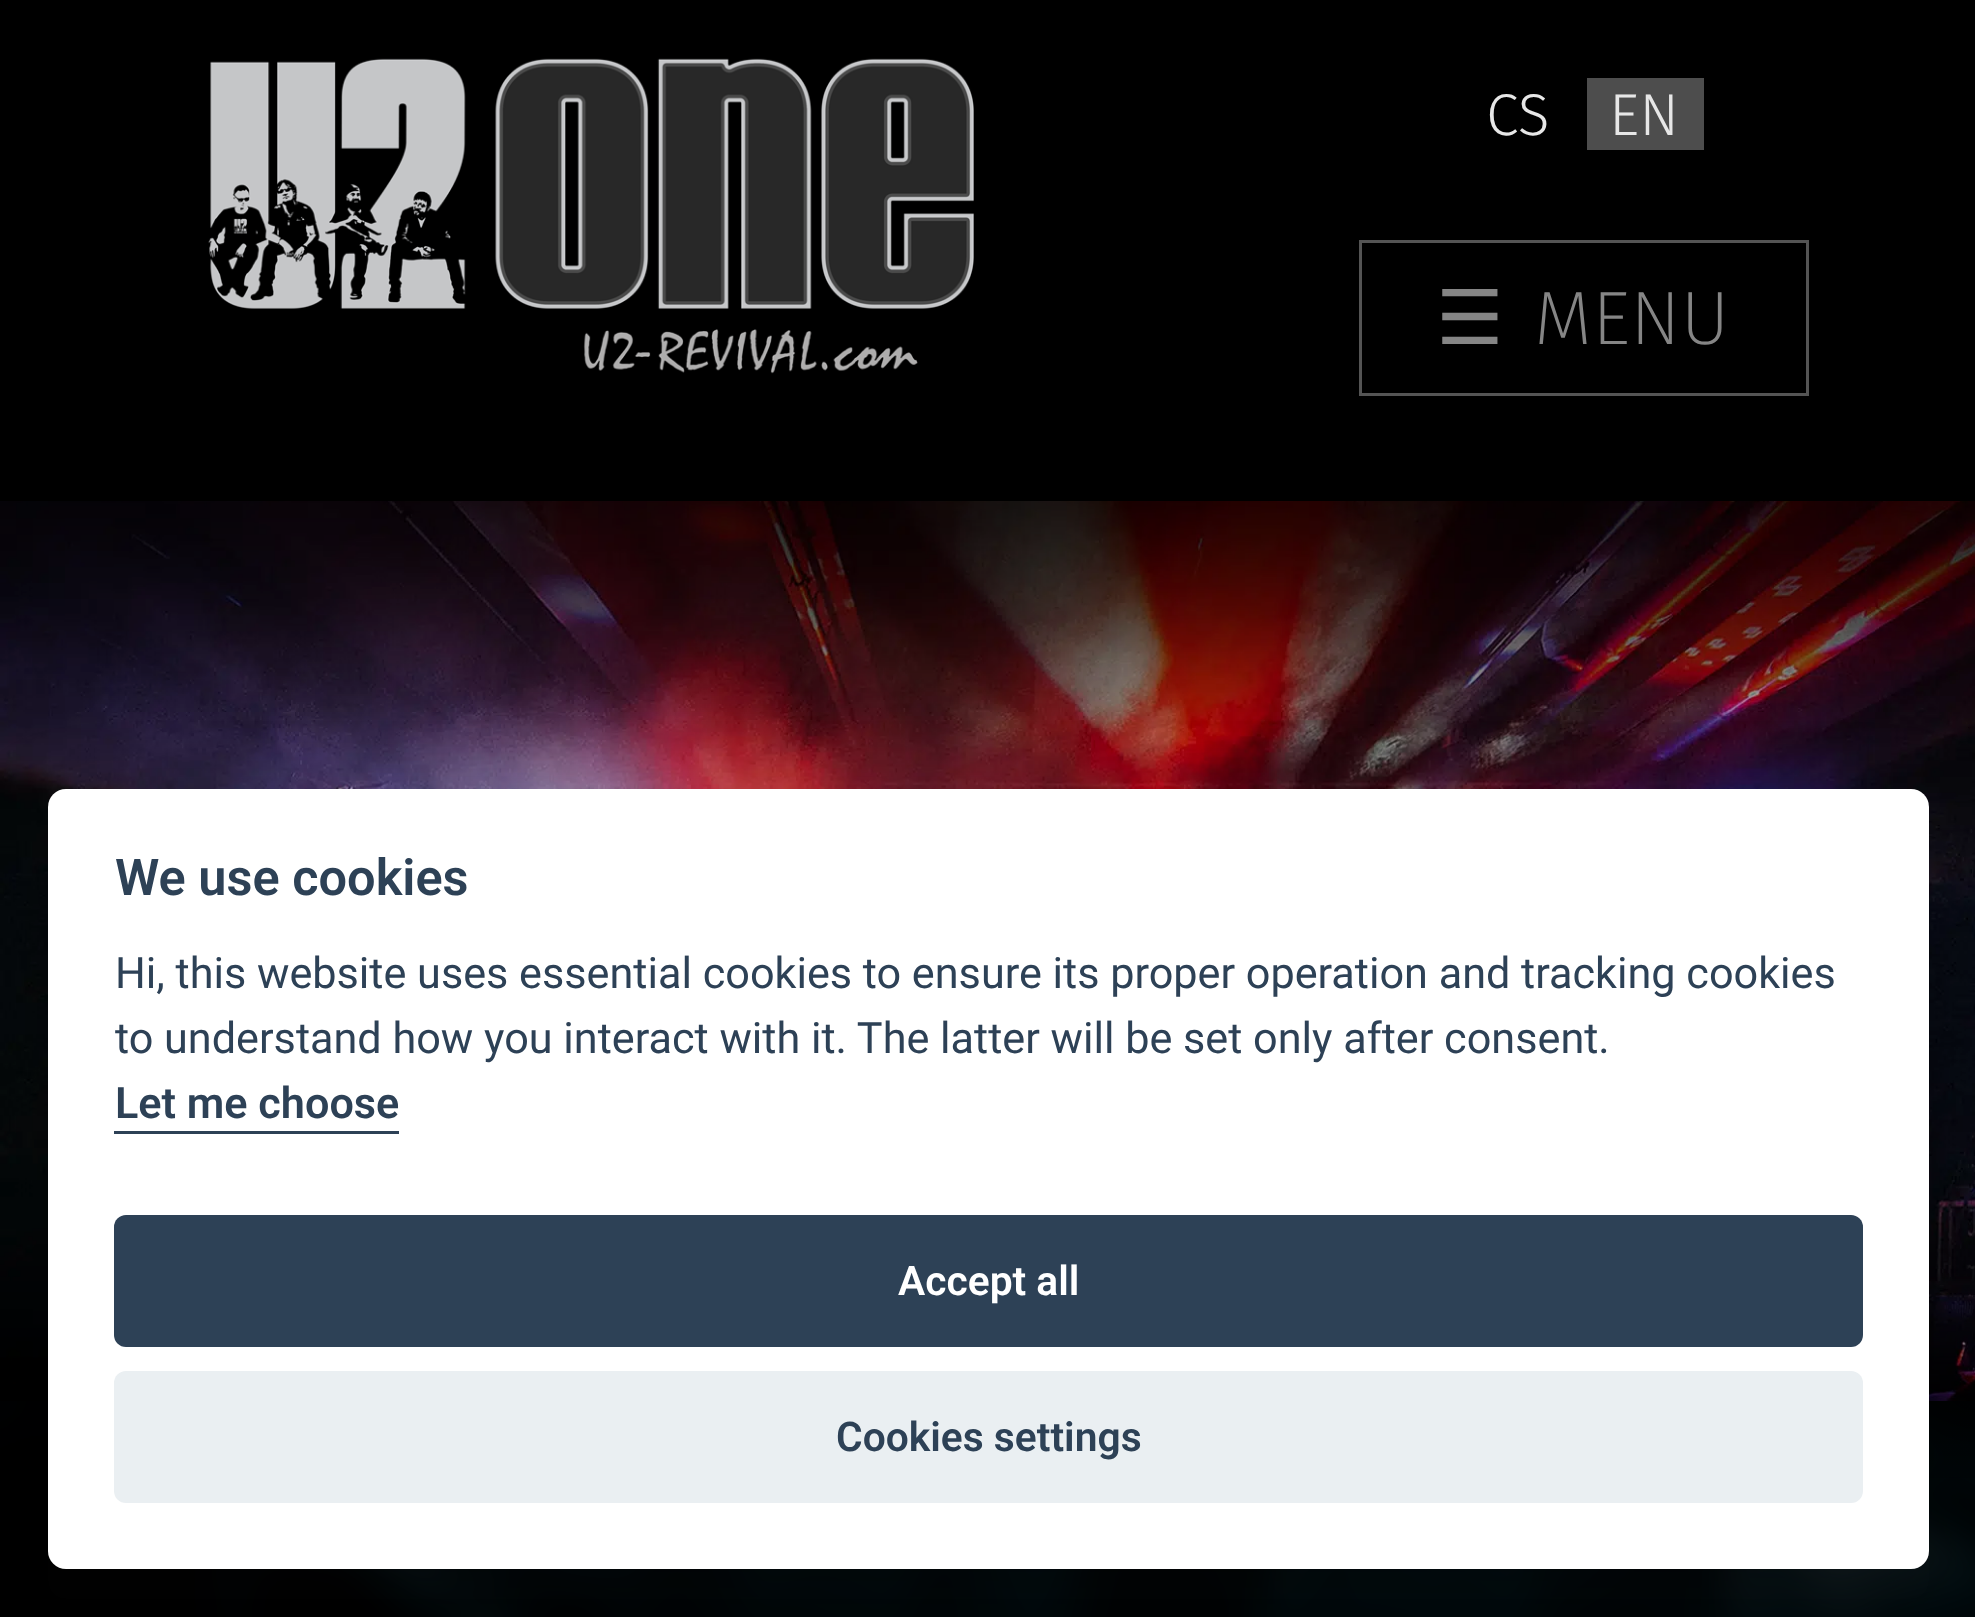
<!DOCTYPE html>
<meta charset="utf-8">
<style>body { margin: 0 } canvas { display: block }</style>
<canvas id="canvas" width="1975" height="1617"></canvas>
<img id="img1" src="images/1.png" hidden>
<img id="img2" src="images/2.png" hidden>
<img id="img3" src="images/3.png" hidden>
<script>
window.onload = function () {
    const canvas = document.getElementById('canvas');
    const context = canvas.getContext('2d');
    context.miterLimit = 4;
    context.fontKerning = 'normal';
    let gradient;

    context.fillStyle = 'rgb(0, 0, 0)';
    context.fillRect(0, 0, 1975, 1617);
    context.drawImage(document.getElementById('img1'), 208, 58, 766, 316);
    context.fillStyle = 'rgb(77, 77, 77)';
    context.fillRect(1587, 78, 117, 72);
    context.strokeStyle = 'rgb(84, 84, 84)';
    context.lineWidth = 3;
    context.strokeRect(1360.5, 241.5, 447, 153);
    context.drawImage(document.getElementById('img2'), 0, 501, 1975, 900);
    context.drawImage(document.getElementById('img3'), 0, 1401, 1975, 216);
    gradient = context.createLinearGradient(989, 1401, 989, 1551);
    gradient.addColorStop(0, 'rgba(0, 0, 0, 0.5)');
    gradient.addColorStop(0.45, 'rgba(0, 0, 0, 0.15)');
    gradient.addColorStop(0.7, 'rgba(0, 0, 0, 0.05)');
    gradient.addColorStop(1, 'rgba(0, 0, 0, 0)');
    context.fillStyle = gradient;
    context.fillRect(213, 1401, 1762, 77);
    context.fillStyle = 'rgba(2, 2, 3, 0.28)';
    context.filter = 'blur(45px)';
    context.beginPath();
    context.roundRect(48, 819, 1881, 780, 18);
    context.fill();
    context.filter = 'none';
    context.fillStyle = 'rgb(255, 255, 255)';
    context.beginPath();
    context.roundRect(48, 789, 1881, 780, 18);
    context.fill();
    context.fillStyle = 'rgb(45, 65, 86)';
    context.fillRect(114, 1131, 285, 3);
    context.beginPath();
    context.roundRect(114, 1215, 1749, 132, 12);
    context.fill();
    context.fillStyle = 'rgb(234, 239, 242)';
    context.beginPath();
    context.roundRect(114, 1371, 1749, 132, 12);
    context.fill();
    context.font = '300 59px Fira Sans';
    context.fillStyle = 'rgb(231, 231, 231)';
    context.fillText('CS', 1486, 135);
    context.fillText('EN', 1609, 135);
    context.font = '75.5px DejaVu Sans';
    context.fillStyle = 'rgb(133, 133, 133)';
    context.fillText('☰', 1436, 344);
    context.font = '300 75.5px "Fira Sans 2"';
    context.fillText('MENU', 1534, 344);
    context.font = '600 50.5px Roboto';
    context.fillStyle = 'rgb(45, 65, 86)';
    context.fillText('We use cookies', 115, 895);
    context.font = '43.2px Roboto';
    context.fillText('Hi, this website uses essential cookies to ensure its proper operation and tracking cookies', 115, 988);
    context.fillText('to understand how you interact with it. The latter will be set only after consent.', 115, 1053);
    context.font = '600 43.2px Roboto';
    context.fillText('Let me choose', 115, 1118);
    context.font = '600 40.75px Roboto';
    context.fillStyle = 'rgb(255, 255, 255)';
    context.fillText('Accept all', 898, 1295);
    context.fillStyle = 'rgb(45, 65, 86)';
    context.fillText('Cookies settings', 836, 1451);
};
</script>
